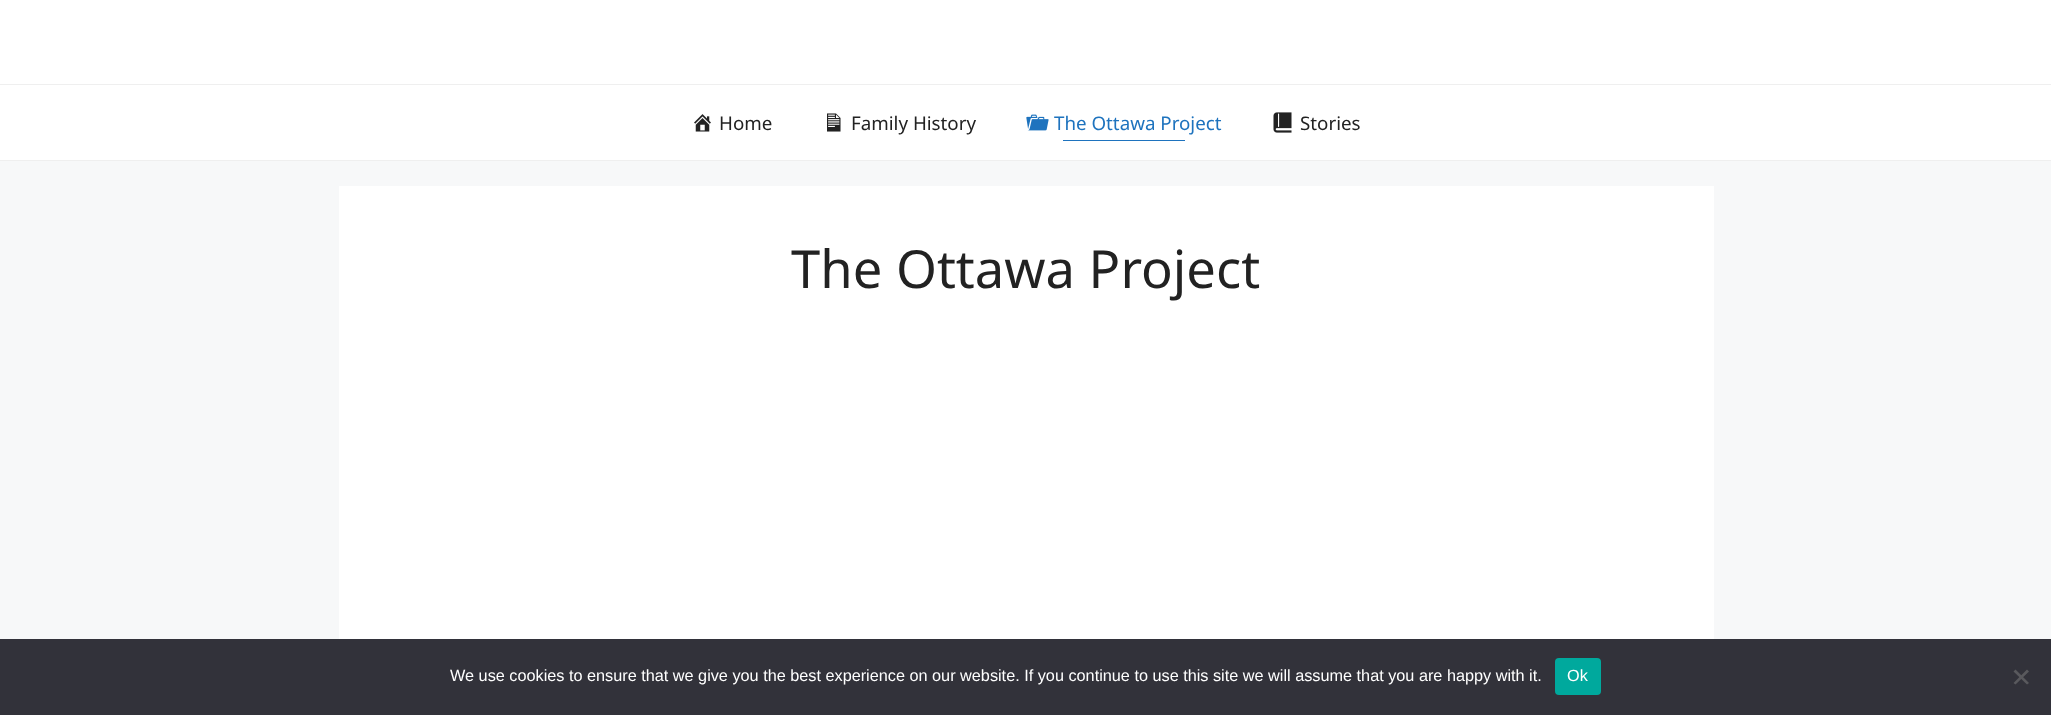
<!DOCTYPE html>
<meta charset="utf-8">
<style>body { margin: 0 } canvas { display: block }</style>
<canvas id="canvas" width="2051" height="715"></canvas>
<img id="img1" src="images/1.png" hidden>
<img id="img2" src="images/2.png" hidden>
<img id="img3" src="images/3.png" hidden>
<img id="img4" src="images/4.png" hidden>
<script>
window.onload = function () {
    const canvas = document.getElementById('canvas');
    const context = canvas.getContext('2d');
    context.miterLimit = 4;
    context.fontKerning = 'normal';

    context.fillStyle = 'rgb(247, 248, 249)';
    context.fillRect(0, 0, 2051, 715);
    context.fillStyle = 'rgb(255, 255, 255)';
    context.fillRect(0, 0, 2051, 84);
    context.fillRect(0, 85, 2051, 75);
    context.fillStyle = 'rgb(239, 239, 239)';
    context.fillRect(0, 84, 2051, 1);
    context.fillRect(0, 160, 2051, 1);
    context.drawImage(document.getElementById('img1'), 694, 114, 17, 18);
    context.drawImage(document.getElementById('img2'), 827, 113, 14, 19);
    context.drawImage(document.getElementById('img3'), 1026, 114, 23, 17);
    context.fillStyle = 'rgb(30, 115, 190)';
    context.fillRect(1063, 140, 122, 1);
    context.drawImage(document.getElementById('img4'), 1273, 112, 19, 21);
    context.fillStyle = 'rgb(255, 255, 255)';
    context.fillRect(339, 186, 1375, 453);
    context.fillStyle = 'rgb(50, 50, 58)';
    context.fillRect(0, 639, 2051, 76);
    context.fillStyle = 'rgb(0, 169, 157)';
    context.beginPath();
    context.roundRect(1555, 658, 46, 37, 4);
    context.fill();
    context.fillStyle = 'rgb(89, 89, 93)';
    context.beginPath();
    context.moveTo(2027, 669.5);
    context.lineTo(2029, 671.5);
    context.lineTo(2015.5, 684.5);
    context.lineTo(2013.5, 683);
    context.closePath();
    context.fill();
    context.beginPath();
    context.moveTo(2013.5, 671.5);
    context.lineTo(2015.5, 669.5);
    context.lineTo(2029, 683);
    context.lineTo(2027, 684.5);
    context.closePath();
    context.fill();
    context.font = '18.75px Noto Sans';
    context.fillStyle = 'rgb(34, 34, 34)';
    context.fillText('Home', 719, 130);
    context.fillText('Family History', 851, 130);
    context.fillStyle = 'rgb(30, 115, 190)';
    context.fillText('The Ottawa Project', 1054, 130);
    context.fillStyle = 'rgb(34, 34, 34)';
    context.fillText('Stories', 1300, 130);
    context.font = '52.5px Noto Sans';
    context.fillText('The Ottawa Project', 791, 288);
    context.font = '16.25px Liberation Sans';
    context.fillStyle = 'rgb(255, 255, 255)';
    context.fillText('We use cookies to ensure that we give you the best experience on our website. If you continue to use this site we will assume that you are happy with it.', 450, 681);
    context.fillText('Ok', 1567, 681);
};
</script>
